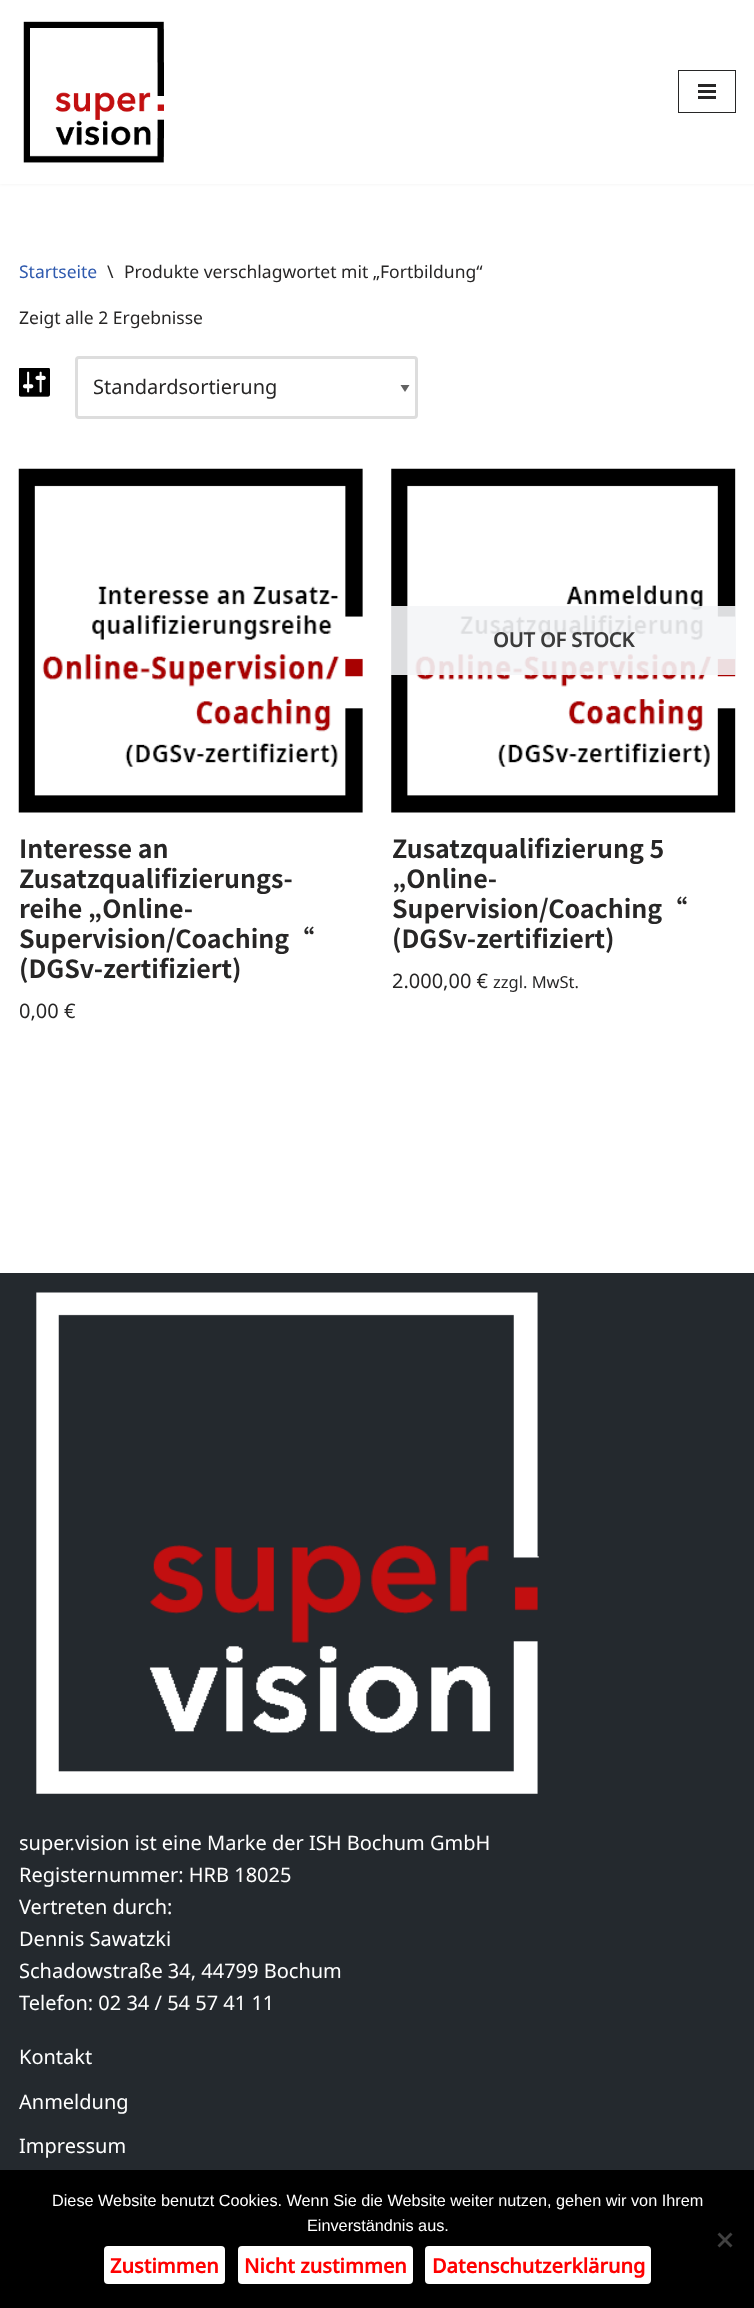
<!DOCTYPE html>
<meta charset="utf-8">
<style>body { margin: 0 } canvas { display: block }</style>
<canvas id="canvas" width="754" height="2308"></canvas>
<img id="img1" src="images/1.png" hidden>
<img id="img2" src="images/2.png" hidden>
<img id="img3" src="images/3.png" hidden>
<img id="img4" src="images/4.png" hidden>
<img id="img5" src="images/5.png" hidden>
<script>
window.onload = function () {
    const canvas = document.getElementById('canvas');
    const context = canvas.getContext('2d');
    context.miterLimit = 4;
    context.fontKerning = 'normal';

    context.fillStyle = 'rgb(255, 255, 255)';
    context.fillRect(0, 0, 754, 2308);
    context.fillStyle = 'rgba(0, 0, 0, 0.1)';
    context.filter = 'blur(2px)';
    context.beginPath();
    context.rect(0, -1, 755, 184);
    context.fill();
    context.filter = 'none';
    context.fillStyle = 'rgb(255, 255, 255)';
    context.fillRect(0, 0, 754, 184);
    context.drawImage(document.getElementById('img1'), 23, 21, 141, 142);
    context.strokeStyle = 'rgb(39, 38, 38)';
    context.strokeRect(678.5, 70.5, 57, 42);
    context.fillStyle = 'rgb(39, 38, 38)';
    context.fillRect(698, 84, 18, 3);
    context.fillRect(698, 90, 18, 3);
    context.fillRect(698, 96, 18, 3);
    context.drawImage(document.getElementById('img2'), 19, 368, 31, 29);
    context.fillStyle = 'rgb(98, 98, 98)';
    context.beginPath();
    context.moveTo(409.5, 385);
    context.lineTo(405, 392);
    context.lineTo(400.5, 385);
    context.closePath();
    context.fill();
    context.beginPath();
    context.roundRect(76.5, 357.5, 340, 60, 2.5);
    context.strokeStyle = 'rgb(221, 221, 221)';
    context.lineWidth = 3;
    context.stroke();
    context.drawImage(document.getElementById('img3'), 18, 468, 345, 345);
    context.drawImage(document.getElementById('img4'), 391, 468, 345, 345);
    context.fillStyle = 'rgba(244, 245, 247, 0.9)';
    context.fillRect(391, 606, 345, 69);
    context.fillStyle = 'rgb(36, 41, 46)';
    context.fillRect(0, 1273, 754, 897);
    context.drawImage(document.getElementById('img5'), 36, 1292, 503, 502);
    context.fillStyle = 'rgb(0, 0, 0)';
    context.fillRect(0, 2170, 754, 138);
    context.fillStyle = 'rgb(64, 64, 64)';
    context.beginPath();
    context.moveTo(730.5, 2232.5);
    context.lineTo(732.5, 2234.5);
    context.lineTo(719.5, 2247.5);
    context.lineTo(717.5, 2245.5);
    context.closePath();
    context.fill();
    context.beginPath();
    context.moveTo(717.5, 2234.5);
    context.lineTo(719.5, 2232.5);
    context.lineTo(732.5, 2245.5);
    context.lineTo(730.5, 2247.5);
    context.closePath();
    context.fill();
    context.fillStyle = 'rgb(255, 255, 255)';
    context.beginPath();
    context.roundRect(104, 2246, 121, 38, 4);
    context.fill();
    context.beginPath();
    context.roundRect(238, 2246, 175, 38, 4);
    context.fill();
    context.beginPath();
    context.roundRect(425, 2246, 226, 38, 4);
    context.fill();
    context.font = '17.5px Noto Sans';
    context.fillStyle = 'rgb(47, 90, 174)';
    context.fillText('Startseite', 19, 278);
    context.fillStyle = 'rgb(39, 38, 38)';
    context.fillText('\\', 107, 278);
    context.fillText('Produkte verschlagwortet mit „Fortbildung“', 124, 278);
    context.fillText('Zeigt alle 2 Ergebnisse', 19, 324);
    context.font = '20px Noto Sans';
    context.fillText('Standardsortierung', 93, 394);
    context.font = 'bold 25px Noto Sans HK';
    context.fillText('Interesse an', 19, 858);
    context.fillText('Zusatzqualifizierungs-', 19, 888);
    context.fillText('reihe „Online-', 19, 918);
    context.fillText('Supervision/Coaching“', 19, 948);
    context.fillText('(DGSv-zertifiziert)', 19, 978);
    context.font = '20px Noto Sans';
    context.fillText('0,00 €', 19, 1018);
    context.font = 'bold 20px Noto Sans';
    context.fillStyle = 'rgb(59, 59, 59)';
    context.fillText('OUT OF STOCK', 493, 647);
    context.font = 'bold 25px Noto Sans HK';
    context.fillStyle = 'rgb(39, 38, 38)';
    context.fillText('Zusatzqualifizierung 5', 392, 858);
    context.fillText('„Online-', 392, 888);
    context.fillText('Supervision/Coaching“', 392, 918);
    context.fillText('(DGSv-zertifiziert)', 392, 948);
    context.font = '20px Noto Sans';
    context.fillText('2.000,00 €', 392, 988);
    context.font = '16.5px Noto Sans';
    context.fillText('zzgl. MwSt.', 493, 988);
    context.font = '20px Noto Sans';
    context.fillStyle = 'rgb(255, 255, 255)';
    context.fillText('super.vision ist eine Marke der ISH Bochum GmbH', 19, 1850);
    context.fillText('Registernummer: HRB 18025', 19, 1882);
    context.fillText('Vertreten durch:', 19, 1914);
    context.fillText('Dennis Sawatzki', 19, 1946);
    context.fillText('Schadowstraße 34, 44799 Bochum', 19, 1978);
    context.fillText('Telefon: 02 34 / 54 57 41 11', 19, 2010);
    context.fillText('Kontakt', 19, 2064);
    context.fillText('Anmeldung', 19, 2109);
    context.fillText('Impressum', 19, 2153);
    context.font = '16.25px Liberation Sans';
    context.fillText('Diese Website benutzt Cookies. Wenn Sie die Website weiter nutzen, gehen wir von Ihrem', 52, 2206);
    context.fillText('Einverständnis aus.', 307, 2231);
    context.font = 'bold 20px Noto Sans';
    context.fillStyle = 'rgb(255, 0, 0)';
    context.fillText('Zustimmen', 110, 2273);
    context.fillText('Nicht zustimmen', 244, 2273);
    context.fillText('Datenschutzerklärung', 432, 2273);
};
</script>
